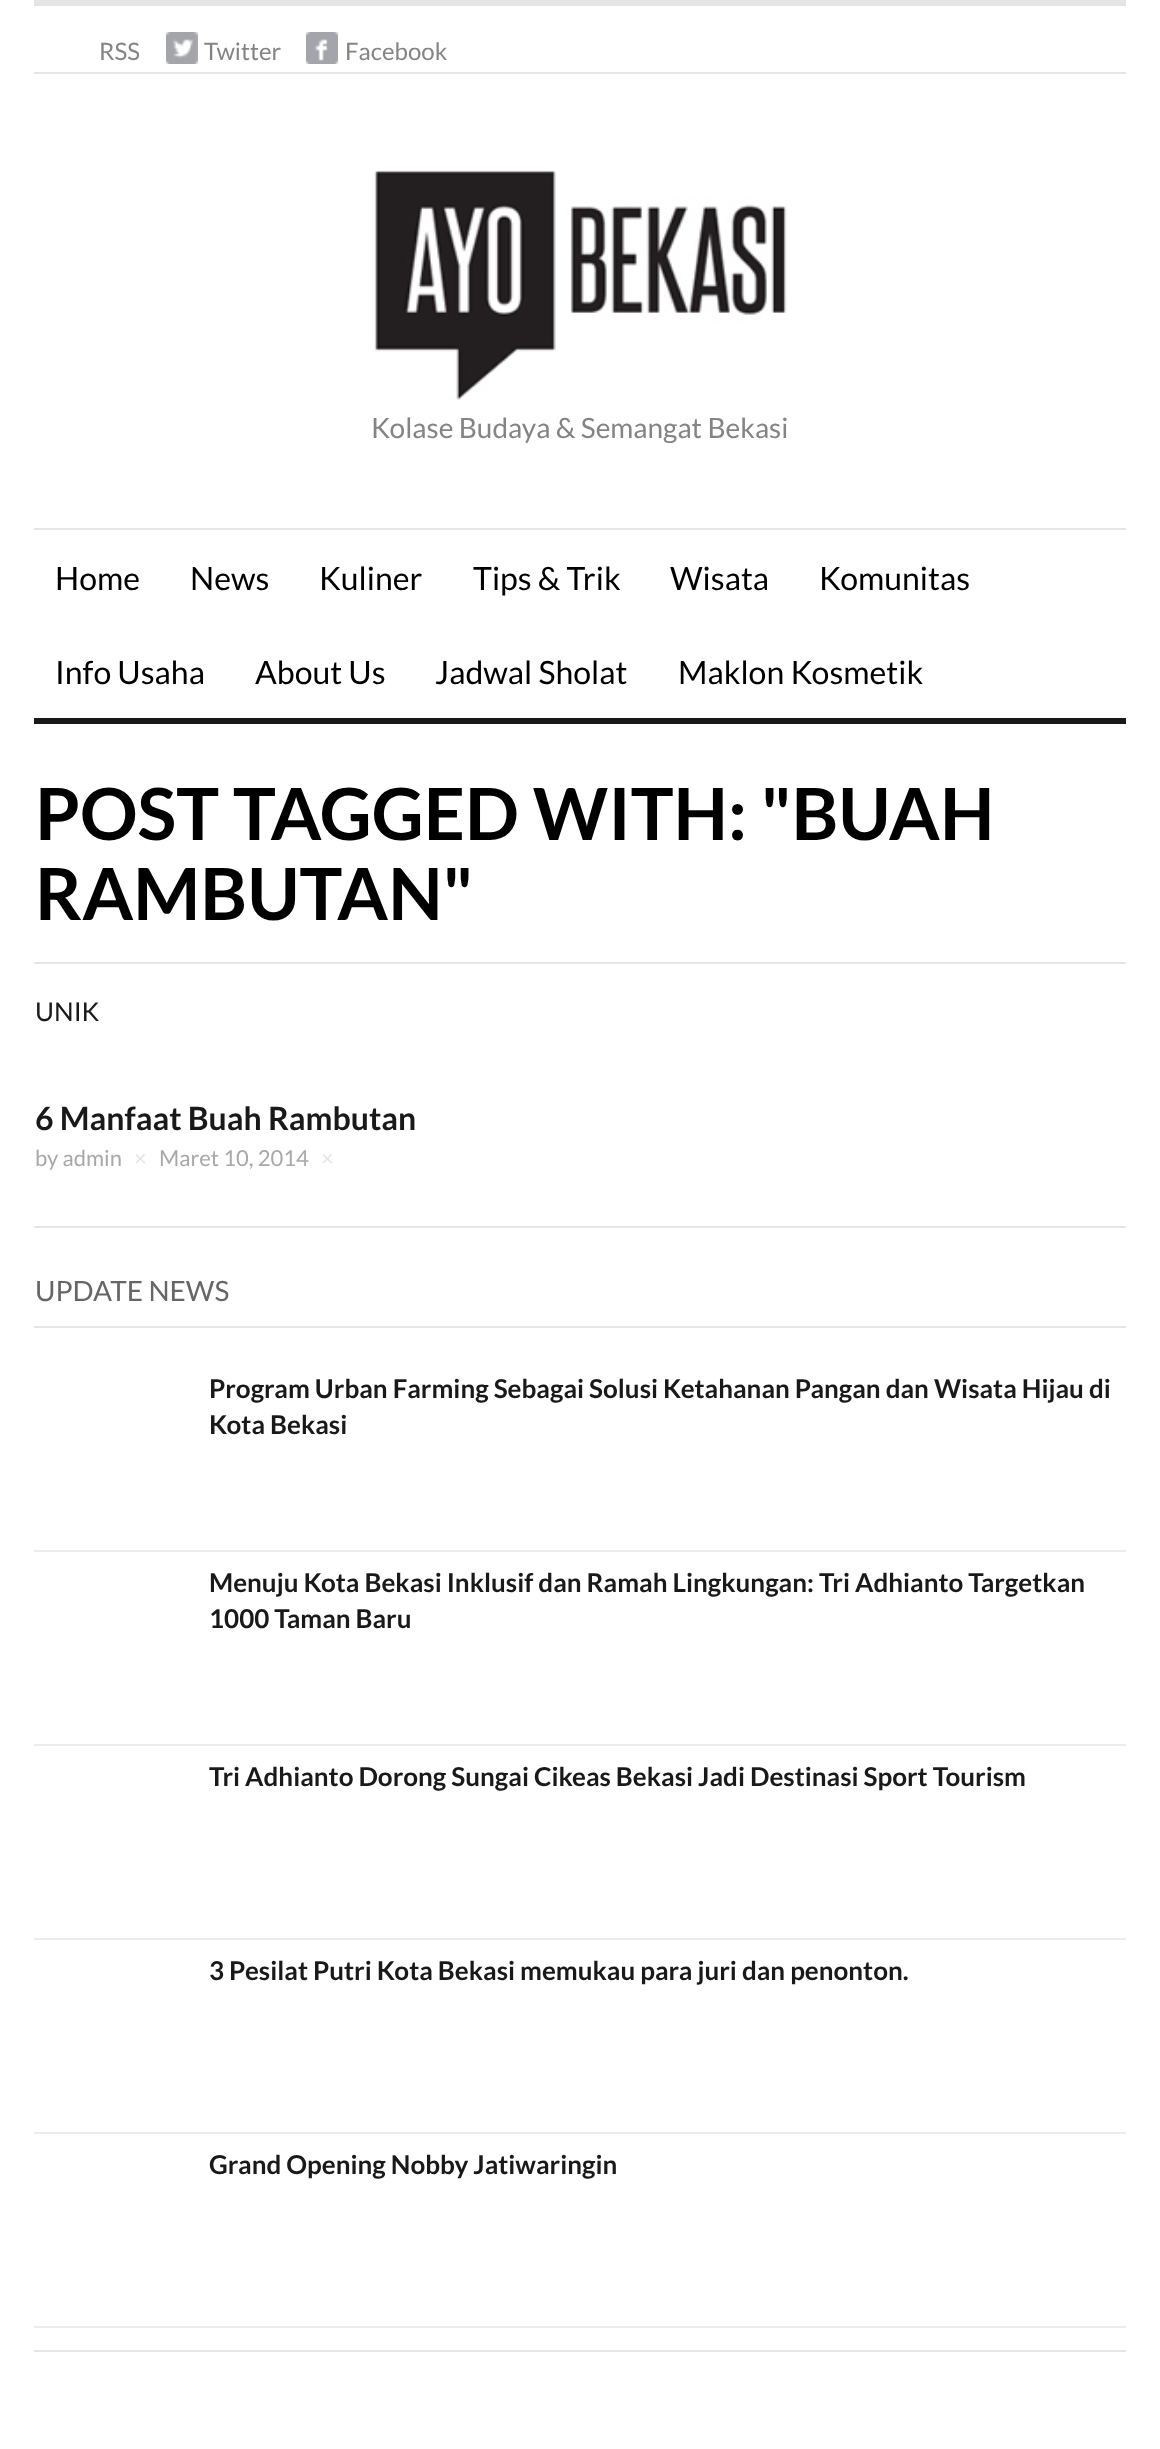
<!DOCTYPE html>
<meta charset="utf-8">
<style>body { margin: 0 } canvas { display: block }</style>
<canvas id="canvas" width="1160" height="2449"></canvas>
<img id="img1" src="images/1.png" hidden>
<img id="img2" src="images/2.png" hidden>
<img id="img3" src="images/3.png" hidden>
<script>
window.onload = function () {
    const canvas = document.getElementById('canvas');
    const context = canvas.getContext('2d');
    context.miterLimit = 4;
    context.fontKerning = 'normal';

    context.fillStyle = 'rgb(255, 255, 255)';
    context.fillRect(0, 0, 1160, 2449);
    context.fillStyle = 'rgb(229, 229, 229)';
    context.fillRect(34, 0, 1092, 6);
    context.fillRect(34, 72, 1092, 2);
    context.drawImage(document.getElementById('img1'), 166, 32, 32, 32);
    context.drawImage(document.getElementById('img2'), 306, 32, 32, 32);
    context.drawImage(document.getElementById('img3'), 374, 170, 413, 230);
    context.fillRect(34, 528, 1092, 2);
    context.fillStyle = 'rgb(25, 25, 25)';
    context.fillRect(34, 718, 1092, 6);
    context.fillStyle = 'rgb(229, 229, 229)';
    context.fillRect(34, 962, 1092, 2);
    context.fillRect(34, 1226, 1092, 2);
    context.fillRect(34, 1326, 1092, 2);
    context.fillStyle = 'rgb(236, 236, 236)';
    context.fillRect(34, 1550, 1092, 2);
    context.fillRect(34, 1744, 1092, 2);
    context.fillRect(34, 1938, 1092, 2);
    context.fillRect(34, 2132, 1092, 2);
    context.fillRect(34, 2326, 1092, 2);
    context.fillStyle = 'rgb(229, 229, 229)';
    context.fillRect(34, 2350, 1092, 2);
    context.font = '24px Lato';
    context.fillStyle = 'rgb(132, 132, 132)';
    context.fillText('RSS', 99, 60);
    context.fillText('Twitter', 204, 60);
    context.fillText('Facebook', 345, 60);
    context.font = '28px Lato';
    context.fillText('Kolase Budaya & Semangat Bekasi', 371, 438);
    context.font = '32px Lato';
    context.fillStyle = 'rgb(0, 0, 0)';
    context.fillText('Home', 55, 590);
    context.fillText('News', 190, 590);
    context.fillText('Kuliner', 319, 590);
    context.fillText('Tips & Trik', 473, 590);
    context.fillText('Wisata', 670, 590);
    context.fillText('Komunitas', 819, 590);
    context.fillText('Info Usaha', 55, 684);
    context.fillText('About Us', 255, 684);
    context.fillText('Jadwal Sholat', 435, 684);
    context.fillText('Maklon Kosmetik', 678, 684);
    context.font = 'bold 72px Lato';
    context.fillText('POST TAGGED WITH: "BUAH', 35, 840);
    context.fillText('RAMBUTAN"', 35, 920);
    context.font = '26px Lato';
    context.fillStyle = 'rgb(25, 25, 25)';
    context.fillText('UNIK', 35, 1021);
    context.font = 'bold 32px Lato';
    context.fillText('6 Manfaat Buah Rambutan', 35, 1130);
    context.font = '22px Lato';
    context.fillStyle = 'rgb(168, 168, 168)';
    context.fillText('by admin', 35, 1166);
    context.fillStyle = 'rgb(229, 229, 229)';
    context.fillText('×', 134, 1166);
    context.fillStyle = 'rgb(168, 168, 168)';
    context.fillText('Maret 10, 2014', 159, 1166);
    context.fillStyle = 'rgb(229, 229, 229)';
    context.fillText('×', 321, 1166);
    context.font = '28px Lato';
    context.fillStyle = 'rgb(102, 102, 102)';
    context.fillText('UPDATE NEWS', 35, 1301);
    context.font = 'bold 26px Lato';
    context.fillStyle = 'rgb(25, 25, 25)';
    context.fillText('Program Urban Farming Sebagai Solusi Ketahanan Pangan dan Wisata Hijau di', 209, 1398);
    context.fillText('Kota Bekasi', 209, 1434);
    context.fillText('Menuju Kota Bekasi Inklusif dan Ramah Lingkungan: Tri Adhianto Targetkan', 209, 1592);
    context.fillText('1000 Taman Baru', 209, 1628);
    context.fillText('Tri Adhianto Dorong Sungai Cikeas Bekasi Jadi Destinasi Sport Tourism', 209, 1786);
    context.fillText('3 Pesilat Putri Kota Bekasi memukau para juri dan penonton.', 209, 1980);
    context.fillText('Grand Opening Nobby Jatiwaringin', 209, 2174);
};
</script>
